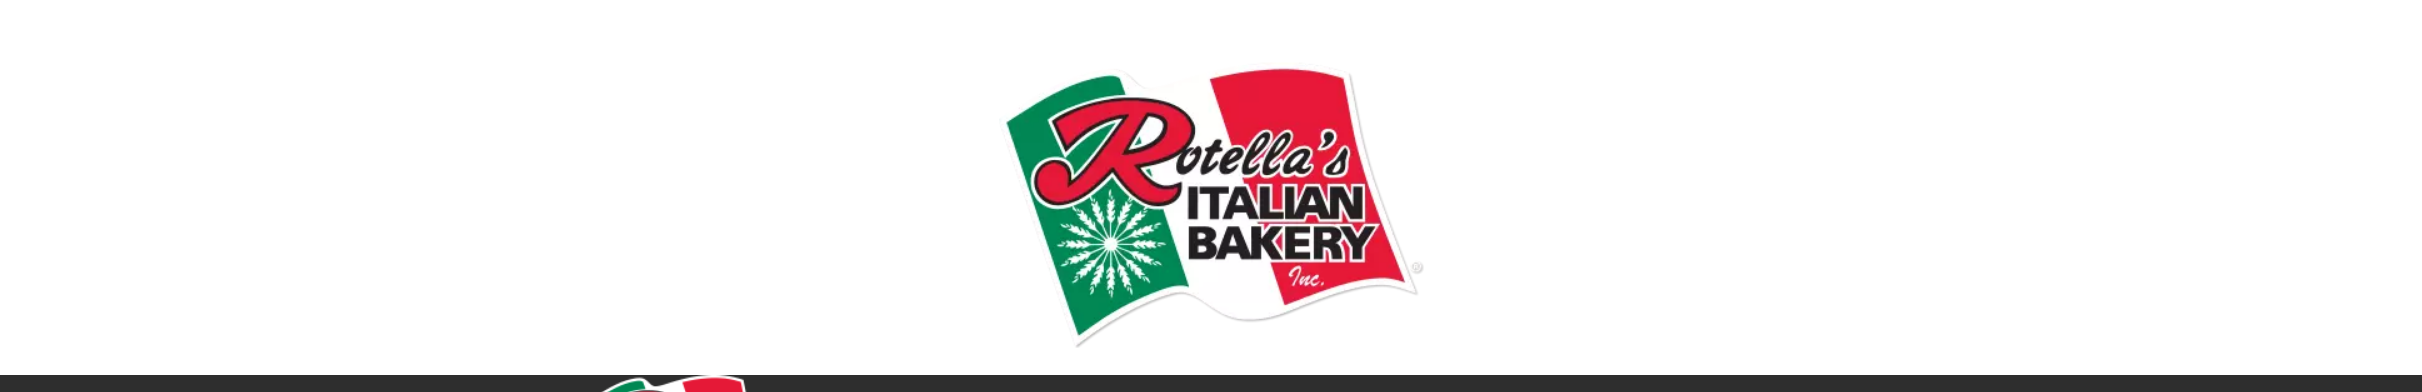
<!DOCTYPE html>
<meta charset="utf-8">
<style>body { margin: 0 } canvas { display: block }</style>
<canvas id="canvas" width="2422" height="392"></canvas>
<img id="img1" src="images/1.png" hidden>
<img id="img2" src="images/2.png" hidden>
<script>
window.onload = function () {
    const canvas = document.getElementById('canvas');
    const context = canvas.getContext('2d');
    context.miterLimit = 4;
    context.fontKerning = 'normal';

    context.fillStyle = 'rgb(255, 255, 255)';
    context.fillRect(0, 0, 2422, 392);
    context.drawImage(document.getElementById('img1'), 999, 62, 425, 286);
    context.fillStyle = 'rgb(46, 46, 46)';
    context.fillRect(0, 375, 2422, 17);
    context.drawImage(document.getElementById('img2'), 601, 375, 146, 17);
};
</script>
